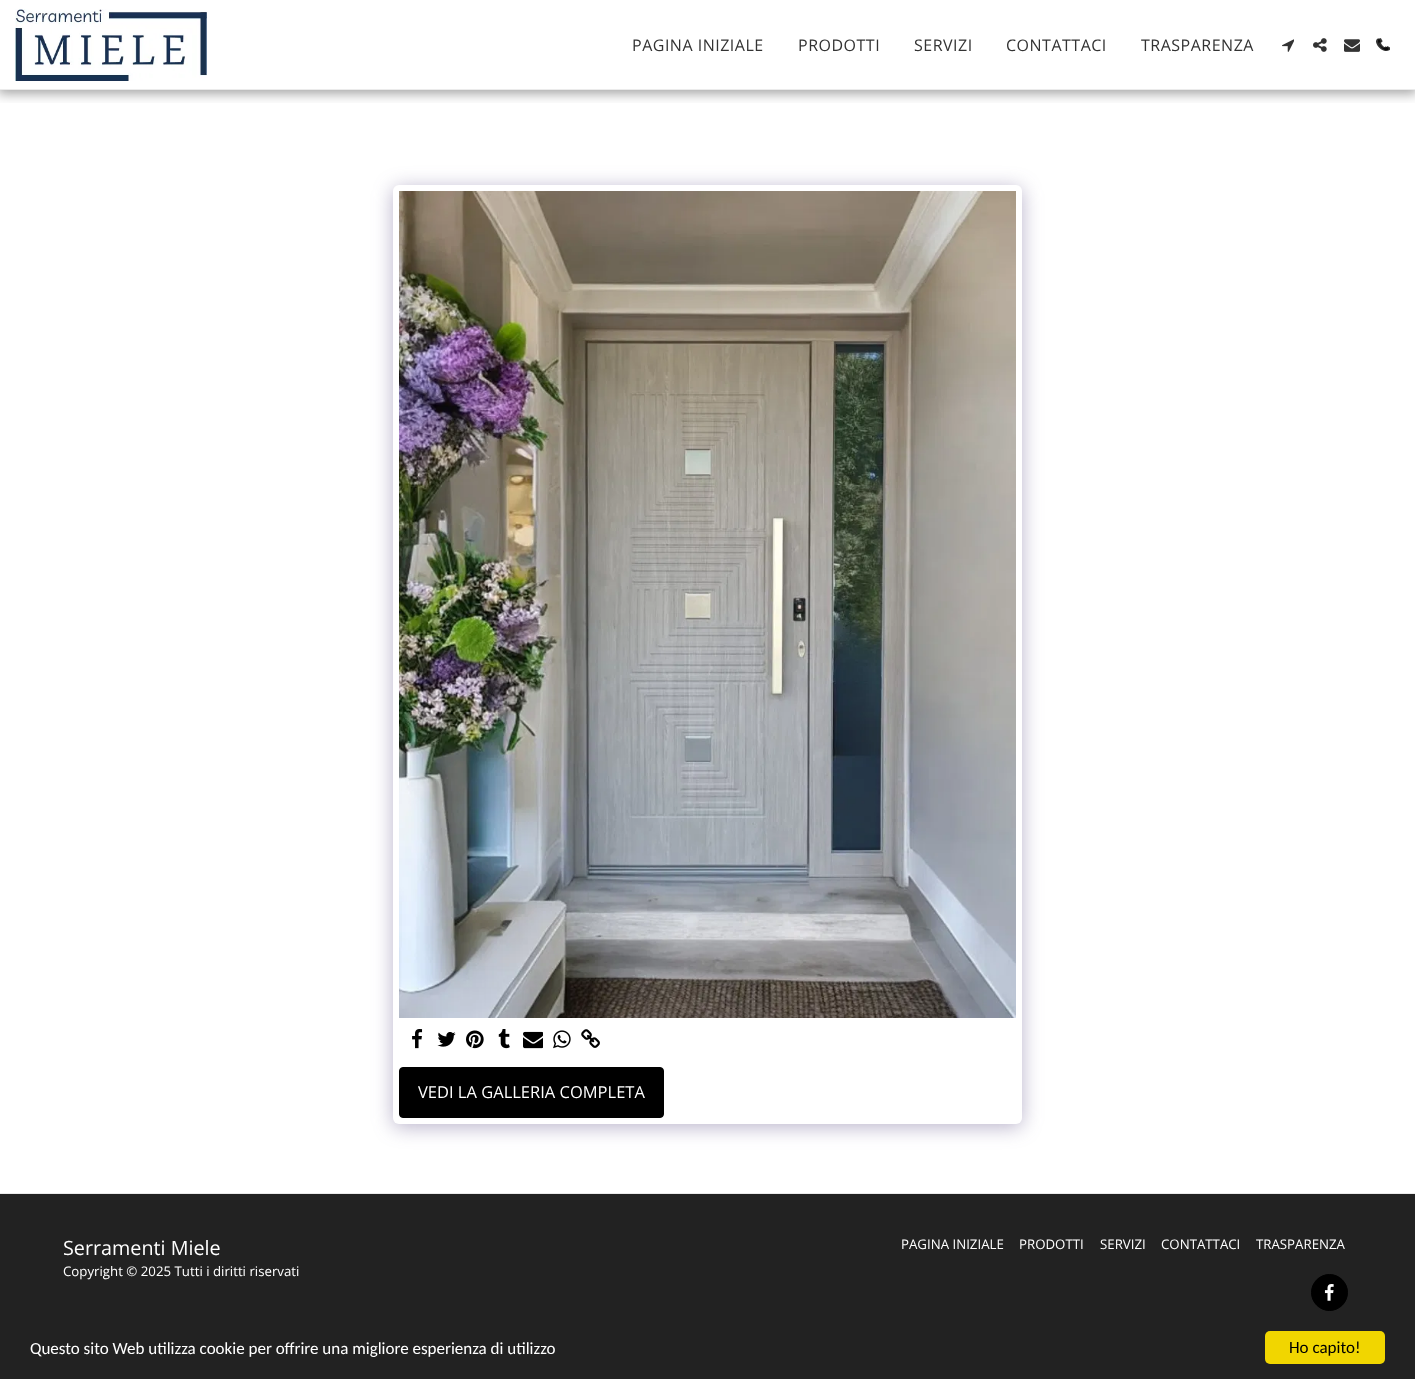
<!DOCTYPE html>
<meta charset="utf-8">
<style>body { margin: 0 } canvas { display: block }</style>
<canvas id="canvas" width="1415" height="1379"></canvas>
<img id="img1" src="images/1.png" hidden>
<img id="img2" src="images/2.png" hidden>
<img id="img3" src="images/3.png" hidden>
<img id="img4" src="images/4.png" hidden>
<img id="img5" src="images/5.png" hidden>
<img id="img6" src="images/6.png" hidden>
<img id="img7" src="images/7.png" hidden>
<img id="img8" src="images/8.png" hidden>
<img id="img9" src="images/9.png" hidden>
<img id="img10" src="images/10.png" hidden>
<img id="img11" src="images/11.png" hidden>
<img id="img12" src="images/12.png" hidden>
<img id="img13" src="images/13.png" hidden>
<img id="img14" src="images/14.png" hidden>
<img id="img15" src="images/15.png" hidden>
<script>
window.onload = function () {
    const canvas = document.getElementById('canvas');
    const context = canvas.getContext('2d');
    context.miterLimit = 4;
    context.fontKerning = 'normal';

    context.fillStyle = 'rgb(255, 255, 255)';
    context.fillRect(0, 0, 1415, 1379);
    context.save();
    context.beginPath();
    context.rect(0, 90, 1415, 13);
    context.clip();
    context.fillStyle = 'rgba(0, 0, 0, 0.35)';
    context.filter = 'blur(6px)';
    context.beginPath();
    context.rect(-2, 0, 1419, 94);
    context.fill();
    context.filter = 'none';
    context.restore();
    context.fillStyle = 'rgb(235, 235, 235)';
    context.fillRect(0, 89, 1415, 1);
    context.drawImage(document.getElementById('img1'), 15, 9, 192, 72);
    context.drawImage(document.getElementById('img2'), 1282, 39, 12, 13);
    context.drawImage(document.getElementById('img3'), 1313, 38, 14, 14);
    context.drawImage(document.getElementById('img4'), 1344, 39, 16, 13);
    context.drawImage(document.getElementById('img5'), 1378, 38, 12, 13);
    context.drawImage(document.getElementById('img6'), 1376, 38, 13, 13);
    context.fillStyle = 'rgba(77, 63, 122, 0.4)';
    context.filter = 'blur(10px)';
    context.beginPath();
    context.roundRect(393, 188, 629, 939, 6);
    context.fill();
    context.filter = 'none';
    context.fillStyle = 'rgb(255, 255, 255)';
    context.beginPath();
    context.roundRect(393, 185, 629, 939, 6);
    context.fill();
    context.drawImage(document.getElementById('img7'), 399, 191, 617, 827);
    context.drawImage(document.getElementById('img8'), 412, 1029, 11, 20);
    context.drawImage(document.getElementById('img9'), 437, 1032, 19, 15);
    context.drawImage(document.getElementById('img10'), 466, 1030, 18, 19);
    context.drawImage(document.getElementById('img11'), 498, 1029, 12, 20);
    context.drawImage(document.getElementById('img12'), 523, 1031, 20, 18);
    context.drawImage(document.getElementById('img13'), 553, 1030, 18, 19);
    context.drawImage(document.getElementById('img14'), 581, 1029, 19, 19);
    context.fillStyle = 'rgb(0, 0, 0)';
    context.beginPath();
    context.roundRect(399.5, 1067.5, 264, 50, 3.5);
    context.fill();
    context.strokeStyle = 'rgb(0, 0, 0)';
    context.stroke();
    context.fillStyle = 'rgb(34, 34, 34)';
    context.fillRect(0, 1194, 1415, 185);
    context.fillStyle = 'rgb(235, 235, 235)';
    context.fillRect(0, 1193, 1415, 1);
    context.fillStyle = 'rgb(0, 0, 0)';
    context.beginPath();
    context.arc(1329.5, 1292.5, 18, 0, 2 * Math.PI);
    context.fill();
    context.stroke();
    context.drawImage(document.getElementById('img15'), 1324, 1284, 10, 17);
    context.fillStyle = 'rgb(241, 214, 0)';
    context.beginPath();
    context.roundRect(1265, 1331, 120, 33, 5);
    context.fill();
    context.letterSpacing = '0.5px';
    context.font = '16px Open Sans';
    context.fillStyle = 'rgb(51, 51, 51)';
    context.fillText('PAGINA INIZIALE', 632, 51);
    context.fillText('PRODOTTI', 798, 51);
    context.fillText('SERVIZI', 914, 51);
    context.fillText('CONTATTACI', 1006, 51);
    context.fillText('TRASPARENZA', 1141, 51);
    context.letterSpacing = '0px';
    context.font = '16.5px Open Sans';
    context.fillStyle = 'rgb(255, 255, 255)';
    context.fillText('VEDI LA GALLERIA COMPLETA', 418, 1098);
    context.font = '19.75px Open Sans';
    context.fillText('Serramenti Miele', 63, 1255);
    context.font = '13.25px Open Sans';
    context.fillText('Copyright © 2025 Tutti i diritti riservati', 63, 1276);
    context.fillText('PAGINA INIZIALE', 901, 1249);
    context.fillText('PRODOTTI', 1019, 1249);
    context.fillText('SERVIZI', 1100, 1249);
    context.fillText('CONTATTACI', 1161, 1249);
    context.fillText('TRASPARENZA', 1256, 1249);
    context.font = '17px Carlito';
    context.fillText('Questo sito Web utilizza cookie per offrire una migliore esperienza di utilizzo', 30, 1354);
    context.fillStyle = 'rgb(0, 0, 0)';
    context.fillText('Ho capito!', 1289, 1353);
};
</script>
